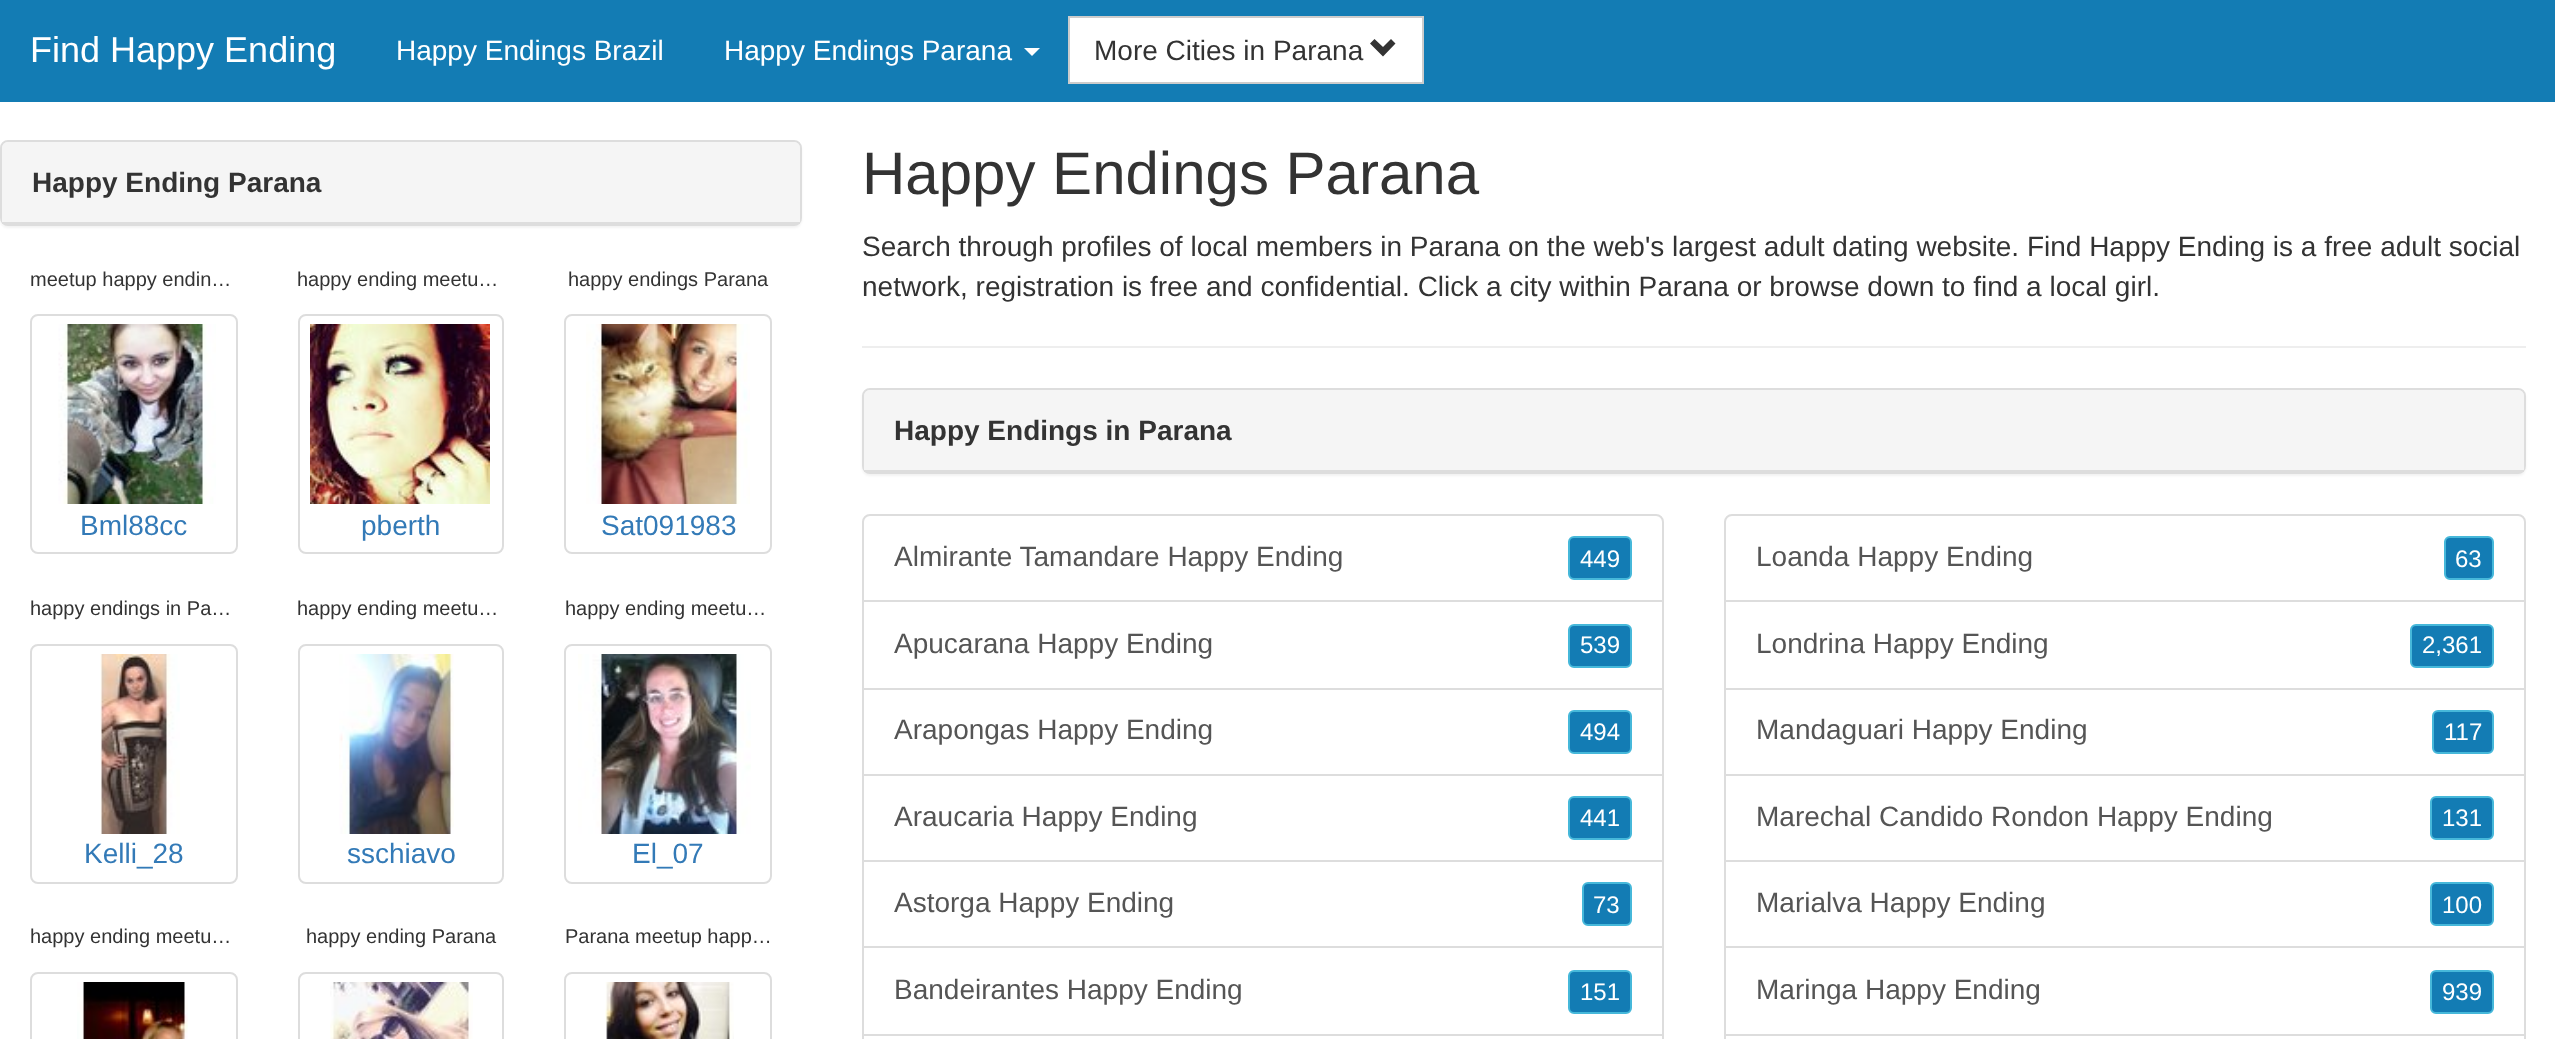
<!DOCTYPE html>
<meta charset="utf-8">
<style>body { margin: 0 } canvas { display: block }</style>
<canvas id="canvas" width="2555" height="1039"></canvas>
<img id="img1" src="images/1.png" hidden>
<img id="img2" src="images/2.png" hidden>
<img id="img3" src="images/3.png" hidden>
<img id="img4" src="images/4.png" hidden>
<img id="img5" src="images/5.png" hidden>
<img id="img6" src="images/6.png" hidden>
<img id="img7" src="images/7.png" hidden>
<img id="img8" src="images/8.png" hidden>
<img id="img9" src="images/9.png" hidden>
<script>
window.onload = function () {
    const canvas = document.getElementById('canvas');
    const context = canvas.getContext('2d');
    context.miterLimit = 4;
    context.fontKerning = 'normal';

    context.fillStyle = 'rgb(255, 255, 255)';
    context.fillRect(0, 0, 2555, 1039);
    context.fillStyle = 'rgb(19, 124, 180)';
    context.fillRect(0, 0, 2555, 102);
    context.fillStyle = 'rgb(254, 254, 254)';
    context.beginPath();
    context.moveTo(1024, 48);
    context.lineTo(1040, 48);
    context.lineTo(1032, 56);
    context.closePath();
    context.fill();
    context.fillStyle = 'rgb(255, 255, 255)';
    context.beginPath();
    context.rect(1069, 17, 354, 66);
    context.fill();
    context.strokeStyle = 'rgb(204, 204, 204)';
    context.lineWidth = 2;
    context.stroke();
    context.fillStyle = 'rgb(51, 51, 51)';
    context.beginPath();
    context.moveTo(1395.5, 43.5);
    context.lineTo(1383, 56.5);
    context.lineTo(1370, 43.5);
    context.lineTo(1374.5, 39);
    context.lineTo(1383, 47);
    context.lineTo(1391, 39);
    context.closePath();
    context.fill();
    context.fillStyle = 'rgba(0, 0, 0, 0.05)';
    context.filter = 'blur(1px)';
    context.beginPath();
    context.roundRect(0, 142, 802, 86, 8);
    context.fill();
    context.filter = 'none';
    context.beginPath();
    context.roundRect(1, 141, 800, 84, 7);
    context.strokeStyle = 'rgb(221, 221, 221)';
    context.stroke();
    context.fillStyle = 'rgb(245, 245, 245)';
    context.beginPath();
    context.roundRect(2, 142, 798, 82, [6, 6, 0, 0]);
    context.fill();
    context.fillStyle = 'rgb(221, 221, 221)';
    context.fillRect(2, 222, 798, 2);
    context.beginPath();
    context.roundRect(31, 315, 206, 238, 7);
    context.stroke();
    context.drawImage(document.getElementById('img1'), 58, 324, 158, 180);
    context.beginPath();
    context.roundRect(299, 315, 204, 238, 7);
    context.stroke();
    context.drawImage(document.getElementById('img2'), 310, 324, 180, 180);
    context.beginPath();
    context.roundRect(565, 315, 206, 238, 7);
    context.stroke();
    context.drawImage(document.getElementById('img3'), 586, 324, 164, 180);
    context.beginPath();
    context.roundRect(31, 645, 206, 238, 7);
    context.stroke();
    context.drawImage(document.getElementById('img4'), 100, 654, 80, 180);
    context.beginPath();
    context.roundRect(299, 645, 204, 238, 7);
    context.stroke();
    context.drawImage(document.getElementById('img5'), 339, 654, 115, 180);
    context.beginPath();
    context.roundRect(565, 645, 206, 238, 7);
    context.stroke();
    context.drawImage(document.getElementById('img6'), 578, 654, 173, 180);
    context.beginPath();
    context.roundRect(31, 973, 206, 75, 7);
    context.stroke();
    context.drawImage(document.getElementById('img7'), 77, 982, 111, 57);
    context.beginPath();
    context.roundRect(299, 973, 204, 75, 7);
    context.stroke();
    context.drawImage(document.getElementById('img8'), 330, 982, 143, 57);
    context.beginPath();
    context.roundRect(565, 973, 206, 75, 7);
    context.stroke();
    context.drawImage(document.getElementById('img9'), 605, 982, 129, 57);
    context.fillStyle = 'rgb(238, 238, 238)';
    context.fillRect(862, 346, 1664, 2);
    context.fillStyle = 'rgba(0, 0, 0, 0.05)';
    context.filter = 'blur(1px)';
    context.beginPath();
    context.roundRect(862, 390, 1664, 86, 8);
    context.fill();
    context.filter = 'none';
    context.beginPath();
    context.roundRect(863, 389, 1662, 84, 7);
    context.stroke();
    context.fillStyle = 'rgb(245, 245, 245)';
    context.beginPath();
    context.roundRect(864, 390, 1660, 82, [6, 6, 0, 0]);
    context.fill();
    context.fillStyle = 'rgb(221, 221, 221)';
    context.fillRect(864, 470, 1660, 2);
    context.beginPath();
    context.roundRect(863, 515, 800, 86, [7, 7, 0, 0]);
    context.stroke();
    context.fillStyle = 'rgb(19, 124, 180)';
    context.beginPath();
    context.roundRect(1569, 537, 62, 42, 5);
    context.fill();
    context.strokeStyle = 'rgb(70, 184, 218)';
    context.stroke();
    context.strokeStyle = 'rgb(221, 221, 221)';
    context.strokeRect(863, 601, 800, 88);
    context.beginPath();
    context.roundRect(1569, 625, 62, 42, 5);
    context.fill();
    context.strokeStyle = 'rgb(70, 184, 218)';
    context.stroke();
    context.strokeStyle = 'rgb(221, 221, 221)';
    context.strokeRect(863, 689, 800, 86);
    context.beginPath();
    context.roundRect(1569, 711, 62, 42, 5);
    context.fill();
    context.strokeStyle = 'rgb(70, 184, 218)';
    context.stroke();
    context.strokeStyle = 'rgb(221, 221, 221)';
    context.strokeRect(863, 775, 800, 86);
    context.beginPath();
    context.roundRect(1569, 797, 62, 42, 5);
    context.fill();
    context.strokeStyle = 'rgb(70, 184, 218)';
    context.stroke();
    context.strokeStyle = 'rgb(221, 221, 221)';
    context.strokeRect(863, 861, 800, 86);
    context.beginPath();
    context.roundRect(1583, 883, 48, 42, 5);
    context.fill();
    context.strokeStyle = 'rgb(70, 184, 218)';
    context.stroke();
    context.strokeStyle = 'rgb(221, 221, 221)';
    context.strokeRect(863, 947, 800, 88);
    context.beginPath();
    context.roundRect(1569, 971, 62, 42, 5);
    context.fill();
    context.strokeStyle = 'rgb(70, 184, 218)';
    context.stroke();
    context.strokeStyle = 'rgb(221, 221, 221)';
    context.strokeRect(863, 1035, 800, 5);
    context.beginPath();
    context.roundRect(1725, 515, 800, 86, [7, 7, 0, 0]);
    context.stroke();
    context.beginPath();
    context.roundRect(2445, 537, 48, 42, 5);
    context.fill();
    context.strokeStyle = 'rgb(70, 184, 218)';
    context.stroke();
    context.strokeStyle = 'rgb(221, 221, 221)';
    context.strokeRect(1725, 601, 800, 88);
    context.beginPath();
    context.roundRect(2411, 625, 82, 42, 5);
    context.fill();
    context.strokeStyle = 'rgb(70, 184, 218)';
    context.stroke();
    context.strokeStyle = 'rgb(221, 221, 221)';
    context.strokeRect(1725, 689, 800, 86);
    context.beginPath();
    context.roundRect(2433, 711, 60, 42, 5);
    context.fill();
    context.strokeStyle = 'rgb(70, 184, 218)';
    context.stroke();
    context.strokeStyle = 'rgb(221, 221, 221)';
    context.strokeRect(1725, 775, 800, 86);
    context.beginPath();
    context.roundRect(2431, 797, 62, 42, 5);
    context.fill();
    context.strokeStyle = 'rgb(70, 184, 218)';
    context.stroke();
    context.strokeStyle = 'rgb(221, 221, 221)';
    context.strokeRect(1725, 861, 800, 86);
    context.beginPath();
    context.roundRect(2431, 883, 62, 42, 5);
    context.fill();
    context.strokeStyle = 'rgb(70, 184, 218)';
    context.stroke();
    context.strokeStyle = 'rgb(221, 221, 221)';
    context.strokeRect(1725, 947, 800, 88);
    context.beginPath();
    context.roundRect(2431, 971, 62, 42, 5);
    context.fill();
    context.strokeStyle = 'rgb(70, 184, 218)';
    context.stroke();
    context.strokeStyle = 'rgb(221, 221, 221)';
    context.strokeRect(1725, 1035, 800, 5);
    context.font = '36px Liberation Sans';
    context.fillStyle = 'rgb(255, 255, 255)';
    context.fillText('Find Happy Ending', 30, 62);
    context.font = '28px Liberation Sans';
    context.fillText('Happy Endings Brazil', 396, 60);
    context.fillText('Happy Endings Parana', 724, 60);
    context.fillStyle = 'rgb(51, 51, 51)';
    context.fillText('More Cities in Parana', 1094, 60);
    context.font = 'bold 28px Liberation Sans';
    context.fillText('Happy Ending Parana', 32, 192);
    context.font = '20px Liberation Sans';
    context.fillText('meetup happy endin…', 30, 286);
    context.font = '28px Liberation Sans';
    context.fillStyle = 'rgb(51, 122, 183)';
    context.fillText('Bml88cc', 80, 535);
    context.font = '20px Liberation Sans';
    context.fillStyle = 'rgb(51, 51, 51)';
    context.fillText('happy ending meetu…', 297, 286);
    context.font = '28px Liberation Sans';
    context.fillStyle = 'rgb(51, 122, 183)';
    context.fillText('pberth', 361, 535);
    context.font = '20px Liberation Sans';
    context.fillStyle = 'rgb(51, 51, 51)';
    context.fillText('happy endings Parana', 568, 286);
    context.font = '28px Liberation Sans';
    context.fillStyle = 'rgb(51, 122, 183)';
    context.fillText('Sat091983', 601, 535);
    context.font = '20px Liberation Sans';
    context.fillStyle = 'rgb(51, 51, 51)';
    context.fillText('happy endings in Pa…', 30, 615);
    context.font = '28px Liberation Sans';
    context.fillStyle = 'rgb(51, 122, 183)';
    context.fillText('Kelli_28', 84, 863);
    context.font = '20px Liberation Sans';
    context.fillStyle = 'rgb(51, 51, 51)';
    context.fillText('happy ending meetu…', 297, 615);
    context.font = '28px Liberation Sans';
    context.fillStyle = 'rgb(51, 122, 183)';
    context.fillText('sschiavo', 347, 863);
    context.font = '20px Liberation Sans';
    context.fillStyle = 'rgb(51, 51, 51)';
    context.fillText('happy ending meetu…', 565, 615);
    context.font = '28px Liberation Sans';
    context.fillStyle = 'rgb(51, 122, 183)';
    context.fillText('El_07', 632, 863);
    context.font = '20px Liberation Sans';
    context.fillStyle = 'rgb(51, 51, 51)';
    context.fillText('happy ending meetu…', 30, 943);
    context.fillText('happy ending Parana', 306, 943);
    context.fillText('Parana meetup happ…', 565, 943);
    context.font = '60px Liberation Sans';
    context.fillText('Happy Endings Parana', 862, 194);
    context.font = '28px Liberation Sans';
    context.fillText('Search through profiles of local members in Parana on the web\'s largest adult dating website. Find Happy Ending is a free adult social', 862, 256);
    context.fillText('network, registration is free and confidential. Click a city within Parana or browse down to find a local girl.', 862, 296);
    context.font = 'bold 28px Liberation Sans';
    context.fillText('Happy Endings in Parana', 894, 440);
    context.font = '28px Liberation Sans';
    context.fillStyle = 'rgb(85, 85, 85)';
    context.fillText('Almirante Tamandare Happy Ending', 894, 566);
    context.font = '24px Liberation Sans';
    context.fillStyle = 'rgb(255, 255, 255)';
    context.fillText('449', 1580, 567);
    context.font = '28px Liberation Sans';
    context.fillStyle = 'rgb(85, 85, 85)';
    context.fillText('Apucarana Happy Ending', 894, 653);
    context.font = '24px Liberation Sans';
    context.fillStyle = 'rgb(255, 255, 255)';
    context.fillText('539', 1580, 653);
    context.font = '28px Liberation Sans';
    context.fillStyle = 'rgb(85, 85, 85)';
    context.fillText('Arapongas Happy Ending', 894, 739);
    context.font = '24px Liberation Sans';
    context.fillStyle = 'rgb(255, 255, 255)';
    context.fillText('494', 1580, 740);
    context.font = '28px Liberation Sans';
    context.fillStyle = 'rgb(85, 85, 85)';
    context.fillText('Araucaria Happy Ending', 894, 826);
    context.font = '24px Liberation Sans';
    context.fillStyle = 'rgb(255, 255, 255)';
    context.fillText('441', 1580, 826);
    context.font = '28px Liberation Sans';
    context.fillStyle = 'rgb(85, 85, 85)';
    context.fillText('Astorga Happy Ending', 894, 912);
    context.font = '24px Liberation Sans';
    context.fillStyle = 'rgb(255, 255, 255)';
    context.fillText('73', 1593, 913);
    context.font = '28px Liberation Sans';
    context.fillStyle = 'rgb(85, 85, 85)';
    context.fillText('Bandeirantes Happy Ending', 894, 999);
    context.font = '24px Liberation Sans';
    context.fillStyle = 'rgb(255, 255, 255)';
    context.fillText('151', 1580, 1000);
    context.font = '28px Liberation Sans';
    context.fillStyle = 'rgb(85, 85, 85)';
    context.fillText('Loanda Happy Ending', 1756, 566);
    context.font = '24px Liberation Sans';
    context.fillStyle = 'rgb(255, 255, 255)';
    context.fillText('63', 2455, 567);
    context.font = '28px Liberation Sans';
    context.fillStyle = 'rgb(85, 85, 85)';
    context.fillText('Londrina Happy Ending', 1756, 653);
    context.font = '24px Liberation Sans';
    context.fillStyle = 'rgb(255, 255, 255)';
    context.fillText('2,361', 2422, 653);
    context.font = '28px Liberation Sans';
    context.fillStyle = 'rgb(85, 85, 85)';
    context.fillText('Mandaguari Happy Ending', 1756, 739);
    context.font = '24px Liberation Sans';
    context.fillStyle = 'rgb(255, 255, 255)';
    context.fillText('117', 2444, 740);
    context.font = '28px Liberation Sans';
    context.fillStyle = 'rgb(85, 85, 85)';
    context.fillText('Marechal Candido Rondon Happy Ending', 1756, 826);
    context.font = '24px Liberation Sans';
    context.fillStyle = 'rgb(255, 255, 255)';
    context.fillText('131', 2442, 826);
    context.font = '28px Liberation Sans';
    context.fillStyle = 'rgb(85, 85, 85)';
    context.fillText('Marialva Happy Ending', 1756, 912);
    context.font = '24px Liberation Sans';
    context.fillStyle = 'rgb(255, 255, 255)';
    context.fillText('100', 2442, 913);
    context.font = '28px Liberation Sans';
    context.fillStyle = 'rgb(85, 85, 85)';
    context.fillText('Maringa Happy Ending', 1756, 999);
    context.font = '24px Liberation Sans';
    context.fillStyle = 'rgb(255, 255, 255)';
    context.fillText('939', 2442, 1000);
};
</script>
